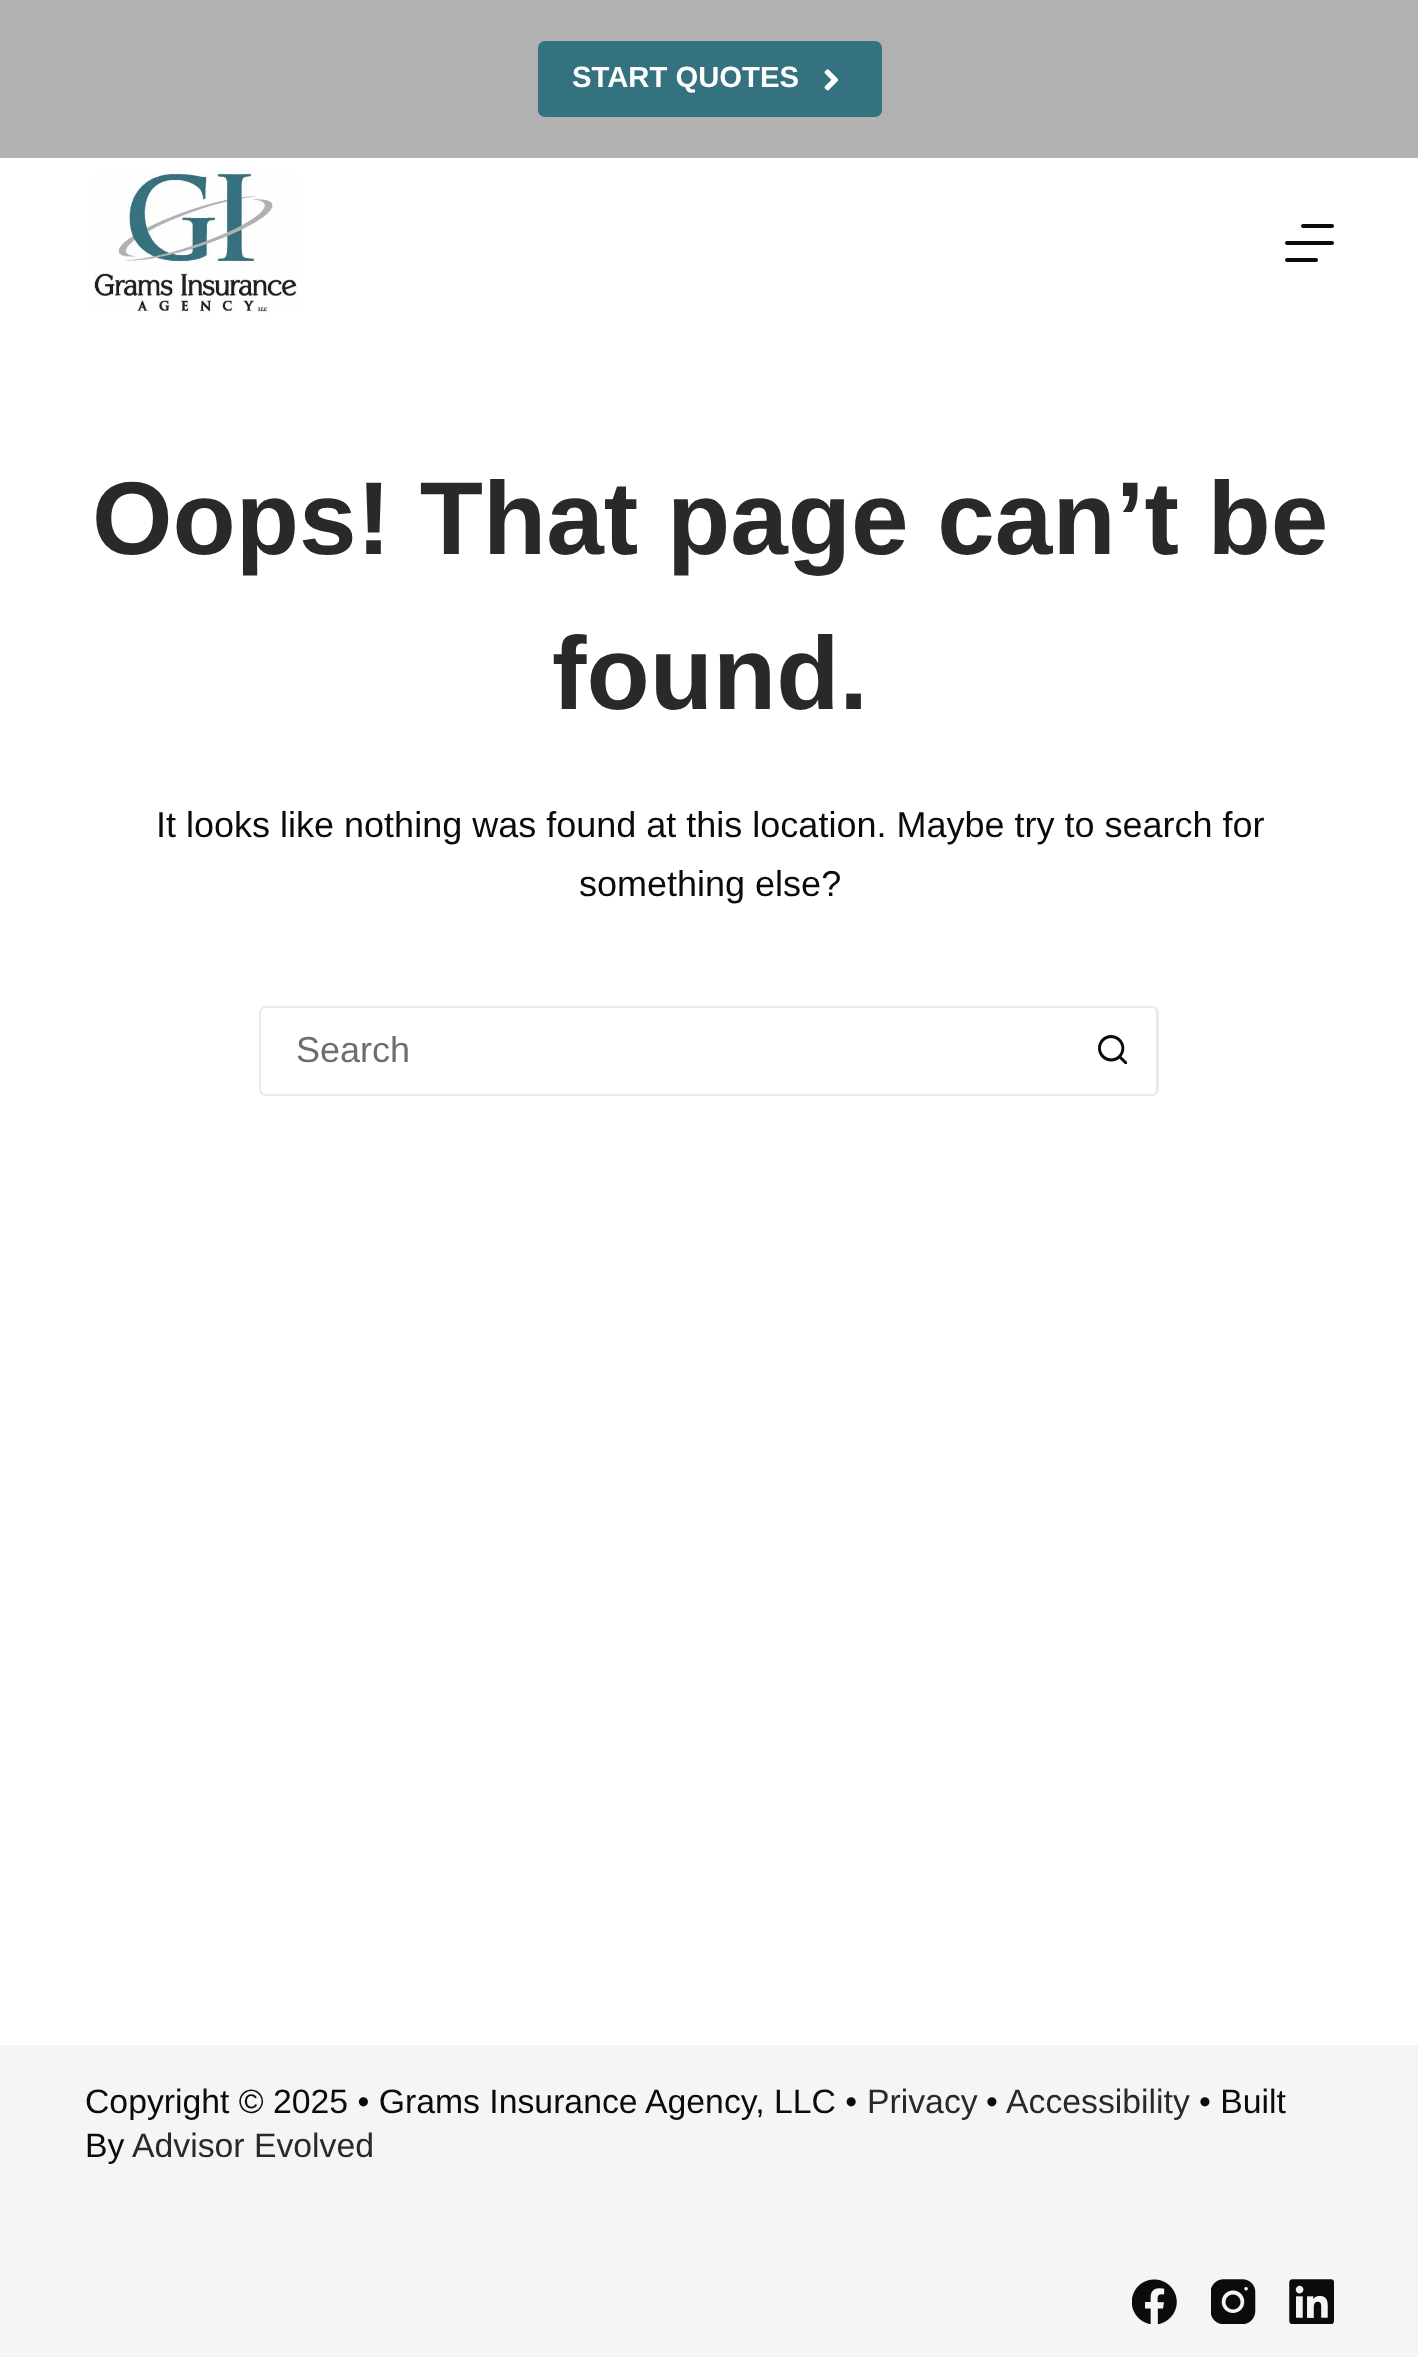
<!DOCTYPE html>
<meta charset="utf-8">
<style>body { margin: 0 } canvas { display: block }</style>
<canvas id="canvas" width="1418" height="2357"></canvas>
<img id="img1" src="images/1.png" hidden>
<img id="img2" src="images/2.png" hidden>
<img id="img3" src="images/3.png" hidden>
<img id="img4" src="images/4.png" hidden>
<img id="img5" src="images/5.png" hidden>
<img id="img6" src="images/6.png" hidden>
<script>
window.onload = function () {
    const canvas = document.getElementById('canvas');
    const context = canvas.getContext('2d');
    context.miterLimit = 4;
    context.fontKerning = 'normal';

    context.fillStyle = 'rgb(255, 255, 255)';
    context.fillRect(0, 0, 1418, 2357);
    context.fillStyle = 'rgb(177, 177, 177)';
    context.fillRect(0, 0, 1418, 158);
    context.fillStyle = 'rgb(53, 114, 128)';
    context.beginPath();
    context.roundRect(538, 41, 344, 76, 7);
    context.fill();
    context.drawImage(document.getElementById('img1'), 824, 69, 15, 22);
    context.drawImage(document.getElementById('img2'), 94, 172, 204, 141);
    context.fillStyle = 'rgb(11, 11, 11)';
    context.beginPath();
    context.roundRect(1301, 224, 33, 4, 2);
    context.fill();
    context.beginPath();
    context.roundRect(1285, 241, 49, 4, 2);
    context.fill();
    context.beginPath();
    context.roundRect(1285, 258, 33, 4, 2);
    context.fill();
    context.fillStyle = 'rgb(232, 235, 237)';
    context.beginPath();
    context.moveTo(266, 1006);
    context.lineTo(1069, 1006);
    context.lineTo(1069, 1096);
    context.lineTo(266, 1096);
    context.bezierCurveTo(262, 1096, 259, 1093, 259, 1089);
    context.lineTo(259, 1012);
    context.bezierCurveTo(259, 1009, 262, 1006, 266, 1006);
    context.closePath();
    context.moveTo(266, 1008);
    context.lineTo(1069, 1008);
    context.lineTo(1069, 1094);
    context.lineTo(266, 1094);
    context.bezierCurveTo(263, 1094, 261, 1091, 261, 1089);
    context.lineTo(261, 1012);
    context.bezierCurveTo(261, 1010, 263, 1008, 266, 1008);
    context.closePath();
    context.fill('evenodd');
    context.beginPath();
    context.moveTo(1069, 1006);
    context.lineTo(1152, 1006);
    context.bezierCurveTo(1156, 1006, 1159, 1009, 1159, 1012);
    context.lineTo(1159, 1089);
    context.bezierCurveTo(1159, 1093, 1156, 1096, 1152, 1096);
    context.lineTo(1069, 1096);
    context.closePath();
    context.moveTo(1069, 1008);
    context.lineTo(1152, 1008);
    context.bezierCurveTo(1154, 1008, 1156, 1010, 1156, 1012);
    context.lineTo(1156, 1089);
    context.bezierCurveTo(1156, 1091, 1154, 1094, 1152, 1094);
    context.lineTo(1069, 1094);
    context.closePath();
    context.fill('evenodd');
    context.drawImage(document.getElementById('img3'), 1098, 1035, 29, 29);
    context.fillStyle = 'rgb(244, 245, 246)';
    context.fillRect(0, 2045, 1418, 312);
    context.drawImage(document.getElementById('img4'), 1132, 2279, 45, 45);
    context.drawImage(document.getElementById('img5'), 1211, 2279, 45, 45);
    context.drawImage(document.getElementById('img6'), 1289, 2279, 45, 45);
    context.font = 'bold 29.25px Liberation Sans';
    context.fillStyle = 'rgb(255, 255, 255)';
    context.fillText('START QUOTES', 572, 87);
    context.font = 'bold 103.5px Liberation Sans';
    context.fillStyle = 'rgb(40, 41, 42)';
    context.fillText('Oops! That page can’t be', 92, 554);
    context.fillText('found.', 552, 709);
    context.font = '36px Liberation Sans';
    context.fillStyle = 'rgb(11, 11, 11)';
    context.fillText('It looks like nothing was found at this location. Maybe try to search for', 156, 837);
    context.fillText('something else?', 579, 896);
    context.fillStyle = 'rgb(109, 109, 109)';
    context.fillText('Search', 296, 1062);
    context.font = '33.75px Liberation Sans';
    context.fillStyle = 'rgb(11, 11, 11)';
    context.fillText('Copyright © 2025 • Grams Insurance Agency, LLC •', 85, 2113);
    context.fillStyle = 'rgb(40, 41, 42)';
    context.fillText('Privacy', 867, 2113);
    context.fillStyle = 'rgb(11, 11, 11)';
    context.fillText('•', 986, 2113);
    context.fillStyle = 'rgb(40, 41, 42)';
    context.fillText('Accessibility', 1006, 2113);
    context.fillStyle = 'rgb(11, 11, 11)';
    context.fillText('• Built', 1199, 2113);
    context.fillText('By', 85, 2157);
    context.fillStyle = 'rgb(40, 41, 42)';
    context.fillText('Advisor Evolved', 132, 2157);
};
</script>
